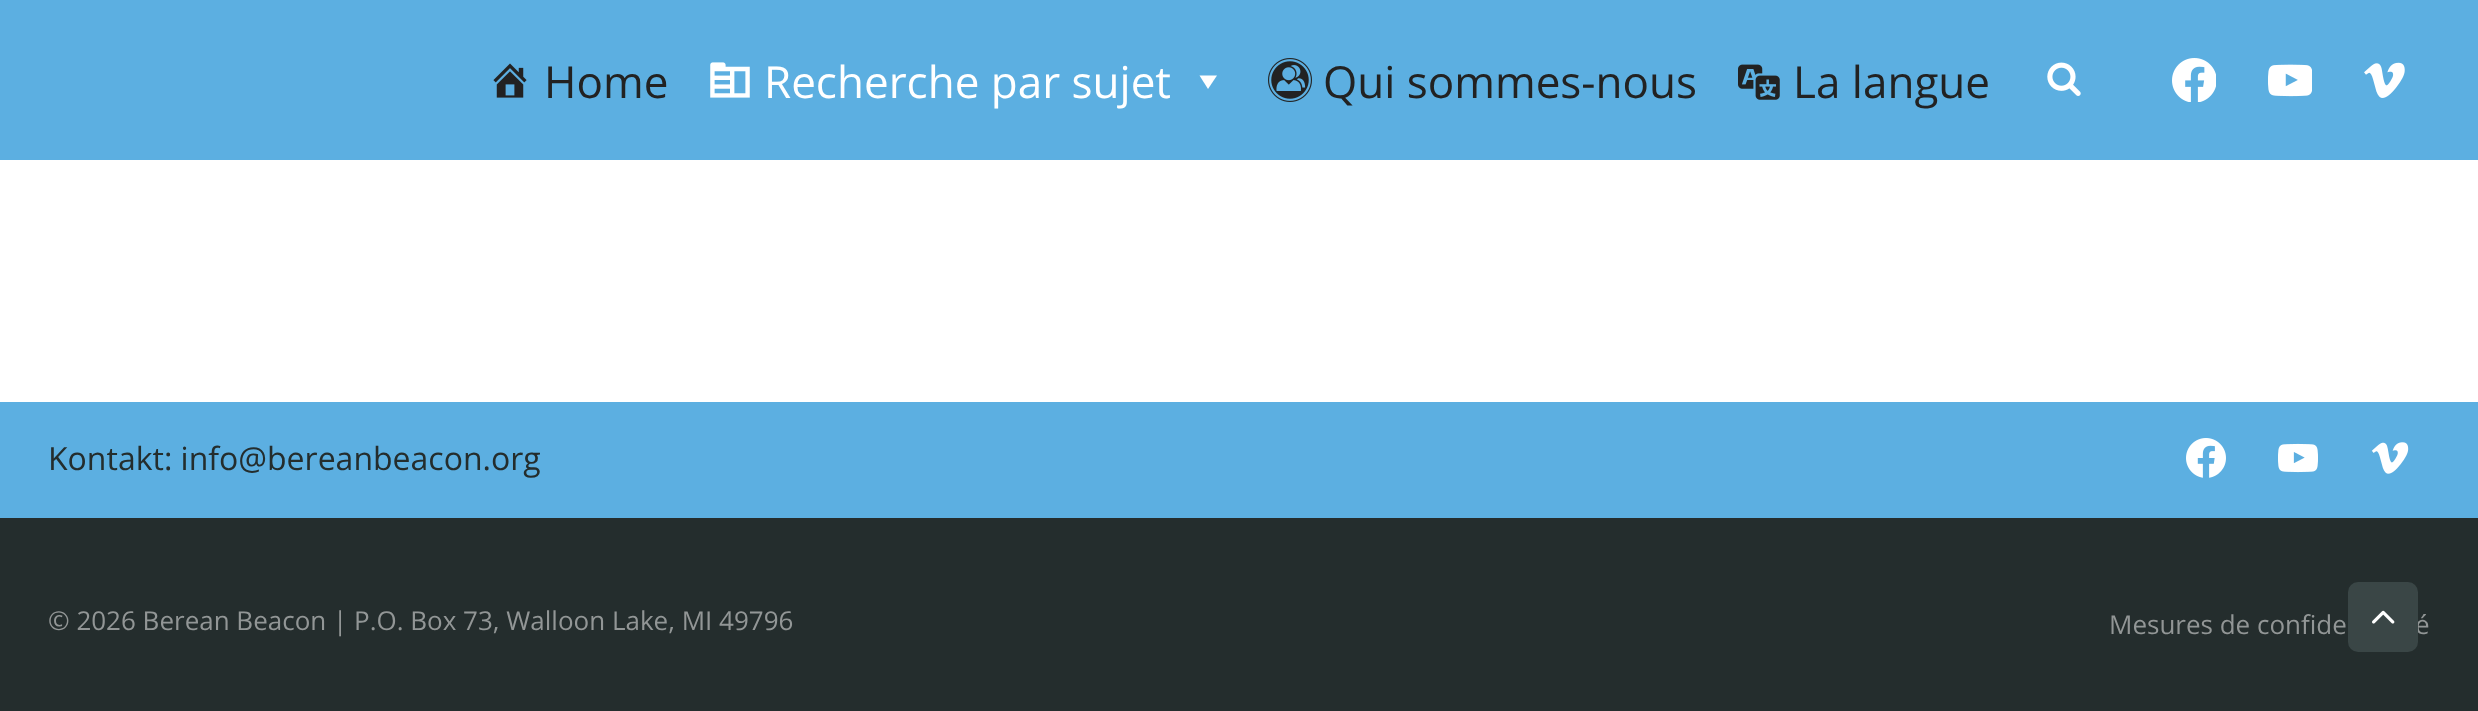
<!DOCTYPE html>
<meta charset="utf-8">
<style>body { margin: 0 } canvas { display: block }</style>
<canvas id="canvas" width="2478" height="711"></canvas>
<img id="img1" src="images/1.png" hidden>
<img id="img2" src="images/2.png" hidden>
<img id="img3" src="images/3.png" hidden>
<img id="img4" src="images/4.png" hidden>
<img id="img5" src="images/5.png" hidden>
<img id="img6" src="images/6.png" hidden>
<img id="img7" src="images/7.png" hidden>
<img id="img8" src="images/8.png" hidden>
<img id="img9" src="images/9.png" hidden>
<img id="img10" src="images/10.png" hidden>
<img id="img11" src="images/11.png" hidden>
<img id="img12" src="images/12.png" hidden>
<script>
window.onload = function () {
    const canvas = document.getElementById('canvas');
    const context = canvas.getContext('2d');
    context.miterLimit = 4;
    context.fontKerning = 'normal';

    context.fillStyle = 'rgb(255, 255, 255)';
    context.fillRect(0, 0, 2478, 711);
    context.fillStyle = 'rgb(92, 175, 225)';
    context.fillRect(0, 0, 2478, 160);
    context.drawImage(document.getElementById('img1'), 493, 63, 34, 35);
    context.drawImage(document.getElementById('img2'), 710, 62, 40, 36);
    context.fillStyle = 'rgb(255, 255, 255)';
    context.beginPath();
    context.moveTo(1217, 75.5);
    context.lineTo(1208, 89);
    context.lineTo(1199.5, 75.5);
    context.closePath();
    context.fill();
    context.drawImage(document.getElementById('img3'), 1268, 58, 44, 44);
    context.drawImage(document.getElementById('img4'), 1738, 64, 42, 36);
    context.drawImage(document.getElementById('img5'), 2047, 62, 34, 34);
    context.drawImage(document.getElementById('img6'), 2172, 58, 44, 44);
    context.drawImage(document.getElementById('img7'), 2268, 64, 44, 33);
    context.drawImage(document.getElementById('img8'), 2364, 62, 41, 36);
    context.fillStyle = 'rgb(36, 45, 45)';
    context.fillRect(0, 518, 2478, 193);
    context.fillStyle = 'rgb(92, 175, 225)';
    context.fillRect(0, 402, 2478, 116);
    context.drawImage(document.getElementById('img9'), 2186, 438, 40, 40);
    context.drawImage(document.getElementById('img10'), 2278, 443, 40, 30);
    context.drawImage(document.getElementById('img11'), 2371, 442, 38, 32);
    context.font = '44px Open Sans';
    context.fillStyle = 'rgb(34, 34, 34)';
    context.fillText('Home', 544, 98);
    context.fillStyle = 'rgb(255, 255, 255)';
    context.fillText('Recherche par sujet', 764, 98);
    context.fillStyle = 'rgb(34, 34, 34)';
    context.fillText('Qui sommes-nous', 1323, 98);
    context.fillText('La langue', 1793, 98);
    context.font = '32px Open Sans';
    context.fillStyle = 'rgb(36, 45, 45)';
    context.fillText('Kontakt: info@bereanbeacon.org', 48, 470);
    context.font = '26px Open Sans';
    context.fillStyle = 'rgb(146, 150, 150)';
    context.fillText('© 2026 Berean Beacon | P.O. Box 73, Walloon Lake, MI 49796', 48, 630);
    context.fillText('Mesures de confide', 2109, 634);
    context.fillText('é', 2415, 634);
    context.fillStyle = 'rgb(58, 70, 70)';
    context.beginPath();
    context.roundRect(2348, 582, 70, 70, 10);
    context.fill();
    context.drawImage(document.getElementById('img12'), 2372, 610, 23, 14);
};
</script>
